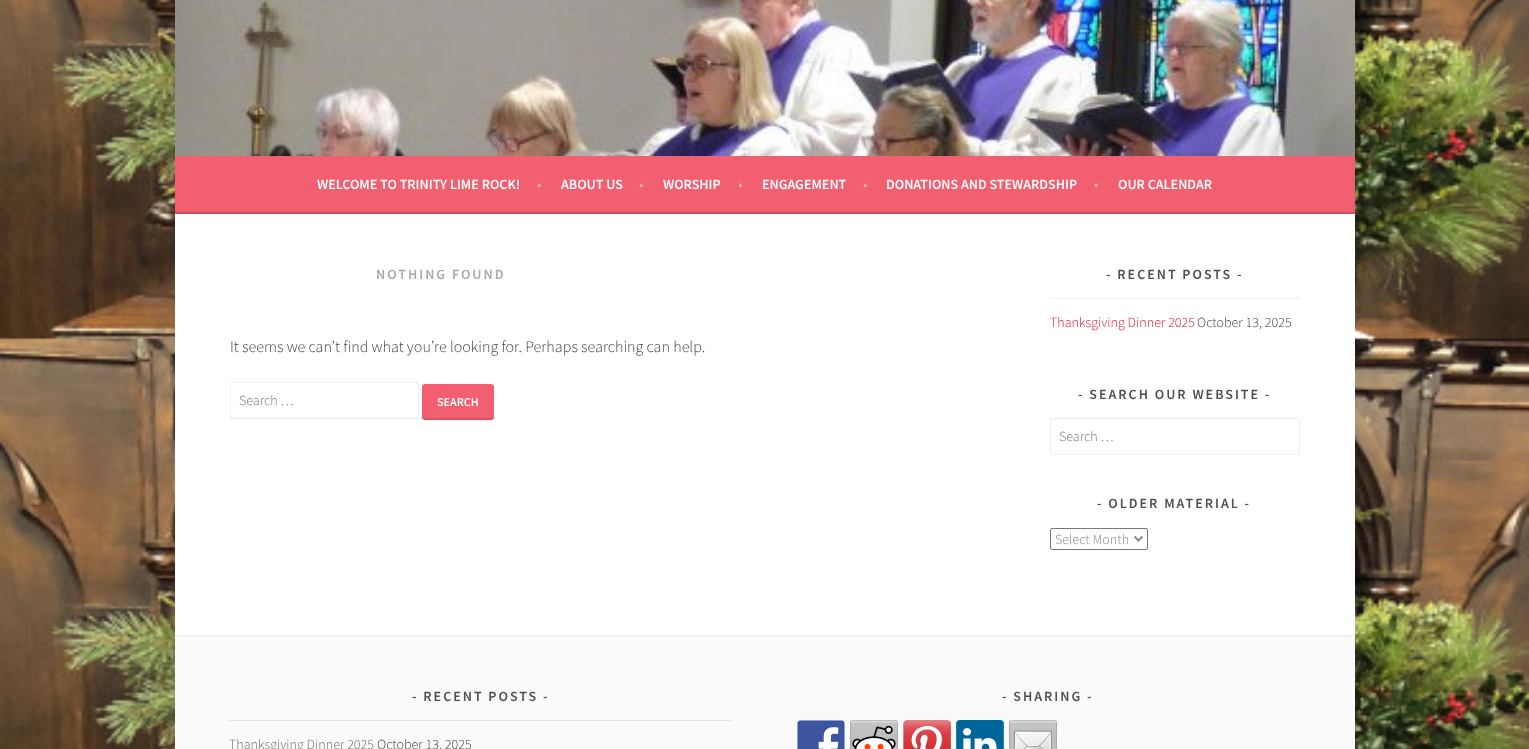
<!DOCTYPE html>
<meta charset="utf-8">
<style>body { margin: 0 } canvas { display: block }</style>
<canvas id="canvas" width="1529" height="749"></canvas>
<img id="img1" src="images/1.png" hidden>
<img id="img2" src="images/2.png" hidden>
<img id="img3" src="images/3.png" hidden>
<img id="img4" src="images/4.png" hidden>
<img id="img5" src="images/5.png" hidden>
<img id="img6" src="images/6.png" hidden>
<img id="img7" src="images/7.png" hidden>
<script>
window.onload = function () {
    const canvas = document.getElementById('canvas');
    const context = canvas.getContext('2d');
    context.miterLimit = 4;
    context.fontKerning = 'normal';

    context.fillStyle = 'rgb(255, 255, 255)';
    context.fillRect(0, 0, 1529, 749);
    context.drawImage(document.getElementById('img1'), 0, 0, 1529, 749);
    context.drawImage(document.getElementById('img2'), 175, 0, 1180, 156);
    context.fillStyle = 'rgb(242, 95, 112)';
    context.fillRect(175, 156, 1180, 56);
    context.fillStyle = 'rgb(206, 81, 95)';
    context.fillRect(175, 212, 1180, 2);
    context.fillStyle = 'rgb(255, 255, 255)';
    context.fillRect(175, 214, 1180, 421);
    context.beginPath();
    context.roundRect(230.5, 382.5, 188, 36, 1.5);
    context.strokeStyle = 'rgb(238, 238, 238)';
    context.stroke();
    context.fillStyle = 'rgb(242, 95, 112)';
    context.beginPath();
    context.roundRect(422, 384, 72, 36, 3);
    context.fill();
    context.fillStyle = 'rgba(0, 0, 0, 0.1)';
    context.beginPath();
    context.moveTo(422, 415);
    context.bezierCurveTo(422, 423, 428, 420, 436, 420);
    context.lineTo(480, 420);
    context.bezierCurveTo(488, 420, 494, 423, 494, 415);
    context.bezierCurveTo(494, 417, 493, 418, 491, 418);
    context.lineTo(425, 418);
    context.bezierCurveTo(423, 418, 422, 417, 422, 415);
    context.closePath();
    context.fill();
    context.fillStyle = 'rgb(242, 242, 242)';
    context.fillRect(1050, 298, 250, 1);
    context.beginPath();
    context.roundRect(1050.5, 418.5, 249, 36, 1.5);
    context.stroke();
    context.beginPath();
    context.roundRect(1050.5, 528.5, 97, 21, 1.5);
    context.strokeStyle = 'rgb(118, 118, 118)';
    context.stroke();
    context.beginPath();
    context.moveTo(1134.5, 536.5);
    context.lineTo(1138.5, 540.5);
    context.lineTo(1142.5, 536.5);
    context.strokeStyle = 'rgb(136, 136, 136)';
    context.lineWidth = 2;
    context.stroke();
    context.fillStyle = 'rgb(250, 250, 250)';
    context.fillRect(175, 636, 1180, 113);
    context.fillStyle = 'rgb(238, 238, 238)';
    context.fillRect(175, 635, 1180, 1);
    context.fillStyle = 'rgb(229, 229, 229)';
    context.fillRect(229, 720, 503, 1);
    context.drawImage(document.getElementById('img3'), 797, 720, 48, 29);
    context.drawImage(document.getElementById('img4'), 850, 720, 48, 29);
    context.drawImage(document.getElementById('img5'), 903, 720, 48, 29);
    context.drawImage(document.getElementById('img6'), 956, 720, 48, 29);
    context.drawImage(document.getElementById('img7'), 1009, 720, 48, 29);
    context.font = '600 14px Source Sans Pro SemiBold';
    context.fillStyle = 'rgb(255, 255, 255)';
    context.fillText('WELCOME TO TRINITY LIME ROCK!', 317, 189);
    context.fillStyle = 'rgb(255, 164, 173)';
    context.fillText('•', 537, 189);
    context.fillStyle = 'rgb(255, 255, 255)';
    context.fillText('ABOUT US', 561, 189);
    context.fillStyle = 'rgb(255, 164, 173)';
    context.fillText('•', 639, 189);
    context.fillStyle = 'rgb(255, 255, 255)';
    context.fillText('WORSHIP', 663, 189);
    context.fillStyle = 'rgb(255, 164, 173)';
    context.fillText('•', 738, 189);
    context.fillStyle = 'rgb(255, 255, 255)';
    context.fillText('ENGAGEMENT', 762, 189);
    context.fillStyle = 'rgb(255, 164, 173)';
    context.fillText('•', 863, 189);
    context.fillStyle = 'rgb(255, 255, 255)';
    context.fillText('DONATIONS AND STEWARDSHIP', 886, 189);
    context.fillStyle = 'rgb(255, 164, 173)';
    context.fillText('•', 1094, 189);
    context.fillStyle = 'rgb(255, 255, 255)';
    context.fillText('OUR CALENDAR', 1118, 189);
    context.letterSpacing = '2px';
    context.fillStyle = 'rgb(170, 170, 170)';
    context.fillText('NOTHING FOUND', 376, 279);
    context.letterSpacing = '0px';
    context.font = '300 16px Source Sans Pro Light';
    context.fillStyle = 'rgb(64, 64, 64)';
    context.fillText('It seems we can’t find what you’re looking for. Perhaps searching can help.', 230, 352);
    context.font = '300 14px Source Sans Pro Light';
    context.fillStyle = 'rgb(117, 117, 117)';
    context.fillText('Search …', 239, 405);
    context.font = '600 12px Source Sans Pro SemiBold';
    context.fillStyle = 'rgb(255, 255, 255)';
    context.fillText('SEARCH', 437, 406);
    context.letterSpacing = '2px';
    context.font = '600 14px Source Sans Pro SemiBold';
    context.fillStyle = 'rgb(79, 79, 79)';
    context.fillText('- RECENT POSTS -', 1106, 279);
    context.letterSpacing = '0px';
    context.font = '300 14px Source Sans Pro Light';
    context.fillStyle = 'rgb(225, 18, 42)';
    context.fillText('Thanksgiving Dinner 2025', 1050, 327);
    context.fillStyle = 'rgb(64, 64, 64)';
    context.fillText('October 13, 2025', 1197, 327);
    context.letterSpacing = '2px';
    context.font = '600 14px Source Sans Pro SemiBold';
    context.fillStyle = 'rgb(79, 79, 79)';
    context.fillText('- SEARCH OUR WEBSITE -', 1078, 399);
    context.letterSpacing = '0px';
    context.font = '300 14px Source Sans Pro Light';
    context.fillStyle = 'rgb(117, 117, 117)';
    context.fillText('Search …', 1059, 441);
    context.letterSpacing = '2px';
    context.font = '600 14px Source Sans Pro SemiBold';
    context.fillStyle = 'rgb(79, 79, 79)';
    context.fillText('- OLDER MATERIAL -', 1097, 508);
    context.letterSpacing = '0px';
    context.font = '300 14px Source Sans Pro Light';
    context.fillStyle = 'rgb(136, 136, 136)';
    context.fillText('Select Month', 1055, 544);
    context.letterSpacing = '2px';
    context.font = '600 14px Source Sans Pro SemiBold';
    context.fillStyle = 'rgb(79, 79, 79)';
    context.fillText('- RECENT POSTS -', 412, 701);
    context.letterSpacing = '0px';
    context.font = '300 14px Source Sans Pro Light';
    context.fillStyle = 'rgb(109, 109, 109)';
    context.fillText('Thanksgiving Dinner 2025', 229, 749);
    context.fillStyle = 'rgb(64, 64, 64)';
    context.fillText('October 13, 2025', 377, 749);
    context.letterSpacing = '2px';
    context.font = '600 14px Source Sans Pro SemiBold';
    context.fillStyle = 'rgb(79, 79, 79)';
    context.fillText('- SHARING -', 1002, 701);
};
</script>
